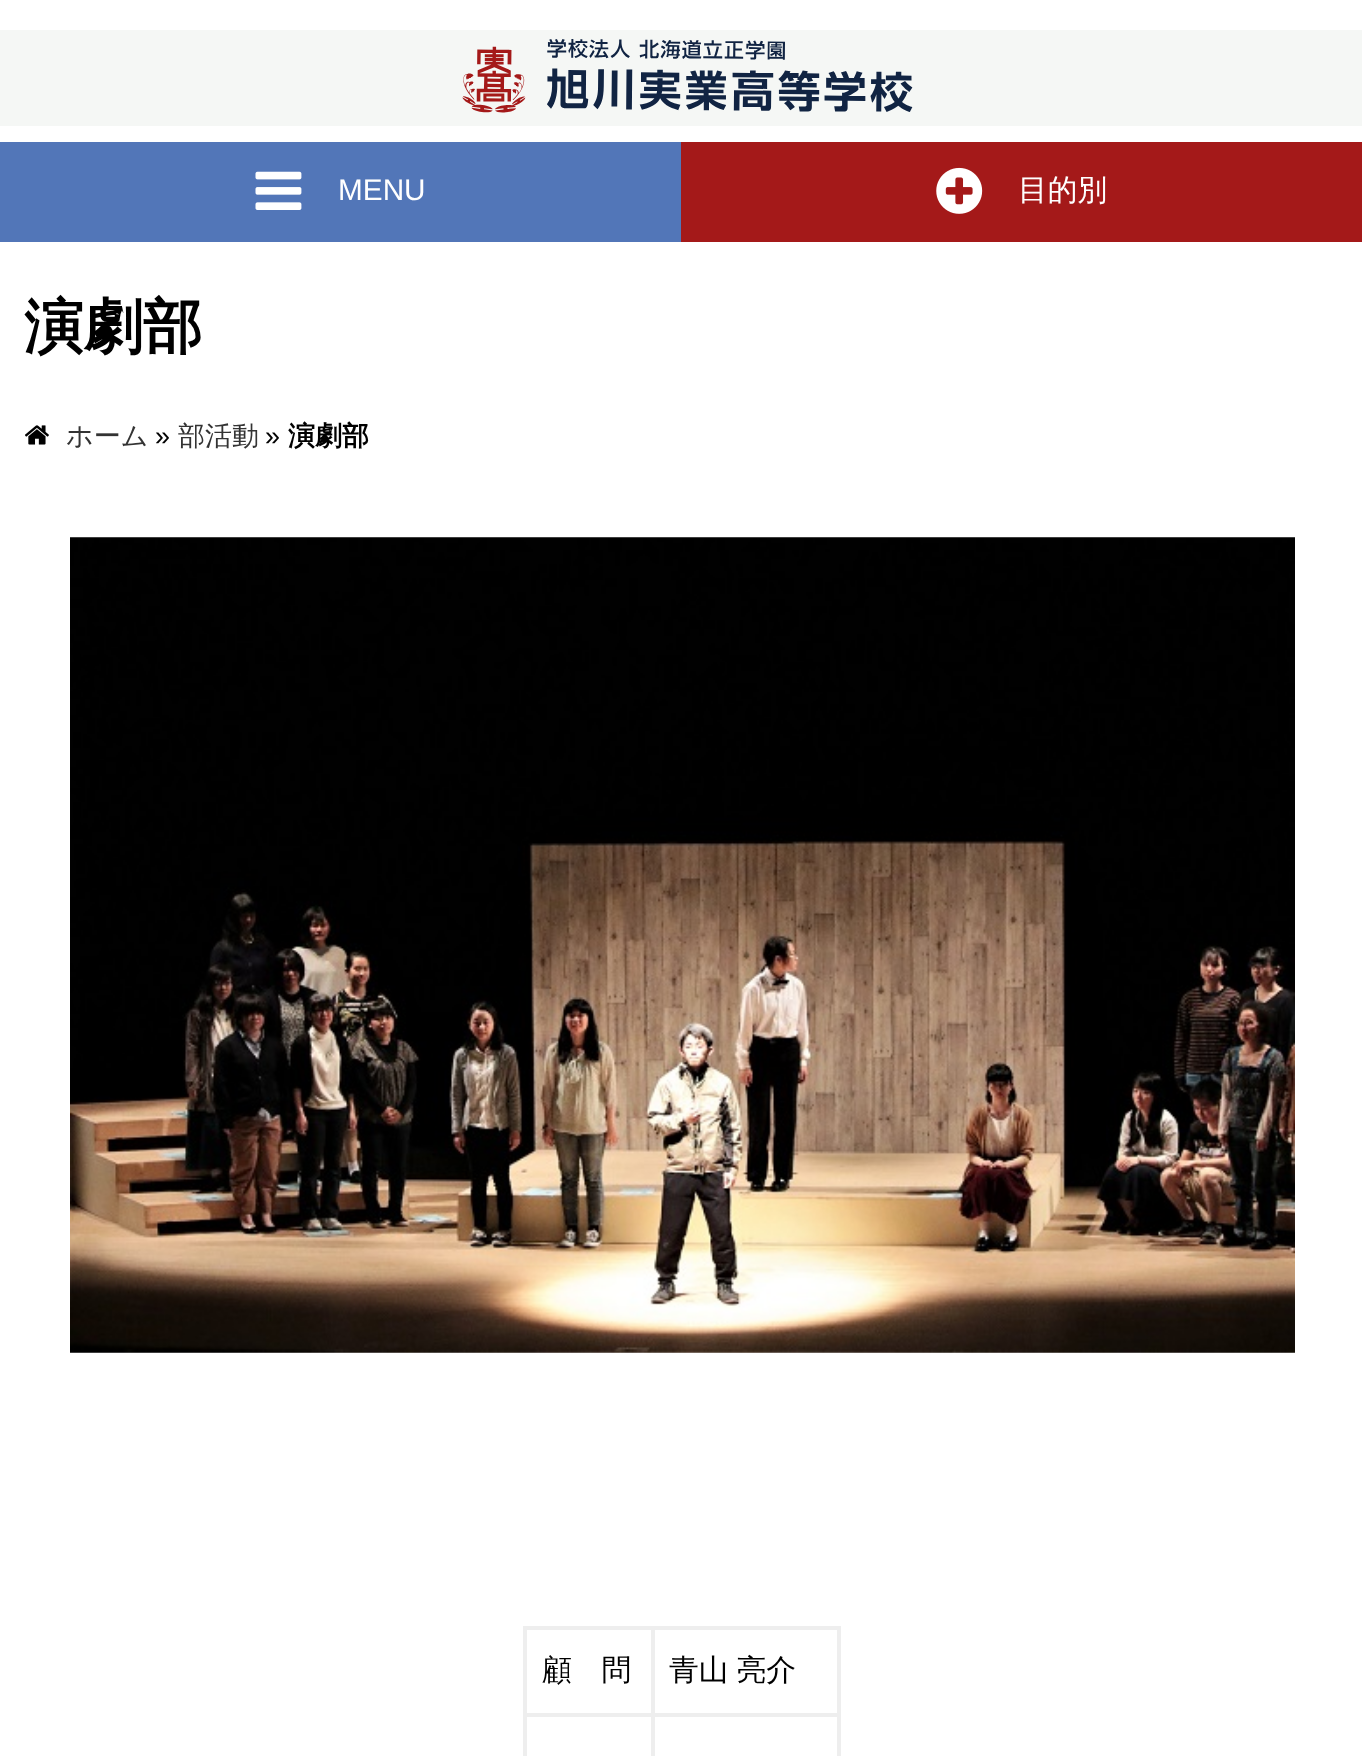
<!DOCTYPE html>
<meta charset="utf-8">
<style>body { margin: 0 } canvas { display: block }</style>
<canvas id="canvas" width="1362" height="1756"></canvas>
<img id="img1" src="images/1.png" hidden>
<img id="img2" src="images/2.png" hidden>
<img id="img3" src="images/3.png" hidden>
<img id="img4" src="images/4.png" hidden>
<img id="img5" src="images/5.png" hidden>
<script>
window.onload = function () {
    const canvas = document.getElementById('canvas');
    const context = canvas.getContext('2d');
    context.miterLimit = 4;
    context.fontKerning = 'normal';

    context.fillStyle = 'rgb(255, 255, 255)';
    context.fillRect(0, 0, 1362, 1756);
    context.fillStyle = 'rgb(245, 247, 245)';
    context.fillRect(0, 30, 1362, 96);
    context.drawImage(document.getElementById('img1'), 462, 39, 451, 74);
    context.fillStyle = 'rgb(82, 118, 184)';
    context.fillRect(0, 142, 681, 100);
    context.drawImage(document.getElementById('img2'), 255, 171, 47, 39);
    context.fillStyle = 'rgb(164, 25, 25)';
    context.fillRect(681, 142, 681, 100);
    context.drawImage(document.getElementById('img3'), 936, 167, 47, 47);
    context.drawImage(document.getElementById('img4'), 25, 425, 24, 20);
    context.drawImage(document.getElementById('img5'), 70, 537, 1225, 816);
    context.fillStyle = 'rgb(238, 238, 238)';
    context.fillRect(523, 1626, 317, 4);
    context.fillRect(837, 1626, 4, 130);
    context.fillRect(523, 1626, 4, 130);
    context.fillRect(651, 1713, 189, 4);
    context.fillRect(651, 1713, 4, 43);
    context.fillRect(523, 1713, 132, 4);
    context.fillRect(651, 1626, 4, 91);
    context.font = '29.75px Liberation Sans';
    context.fillStyle = 'rgb(255, 255, 255)';
    context.fillText('MENU', 338, 200);
    context.font = '500 29.75px WenQuanYi Zen Hei';
    context.fillText('目的別', 1018, 200);
    context.font = 'bold 59.5px WenQuanYi Zen Hei';
    context.fillStyle = 'rgb(0, 0, 0)';
    context.fillText('演劇部', 24, 347);
    context.font = '500 27px WenQuanYi Zen Hei';
    context.fillStyle = 'rgb(51, 51, 51)';
    context.fillText('ホーム', 66, 445);
    context.font = '27px Liberation Sans';
    context.fillStyle = 'rgb(0, 0, 0)';
    context.fillText('»', 155, 445);
    context.font = '500 27px WenQuanYi Zen Hei';
    context.fillStyle = 'rgb(51, 51, 51)';
    context.fillText('部活動', 178, 445);
    context.font = '27px Liberation Sans';
    context.fillStyle = 'rgb(0, 0, 0)';
    context.fillText('»', 265, 445);
    context.font = 'bold 27px WenQuanYi Zen Hei';
    context.fillText('演劇部', 288, 445);
    context.font = '500 29.75px WenQuanYi Zen Hei';
    context.fillText('顧　問', 542, 1680);
    context.wordSpacing = '-1px';
    context.fillText('青山 亮介', 669, 1680);
};
</script>
